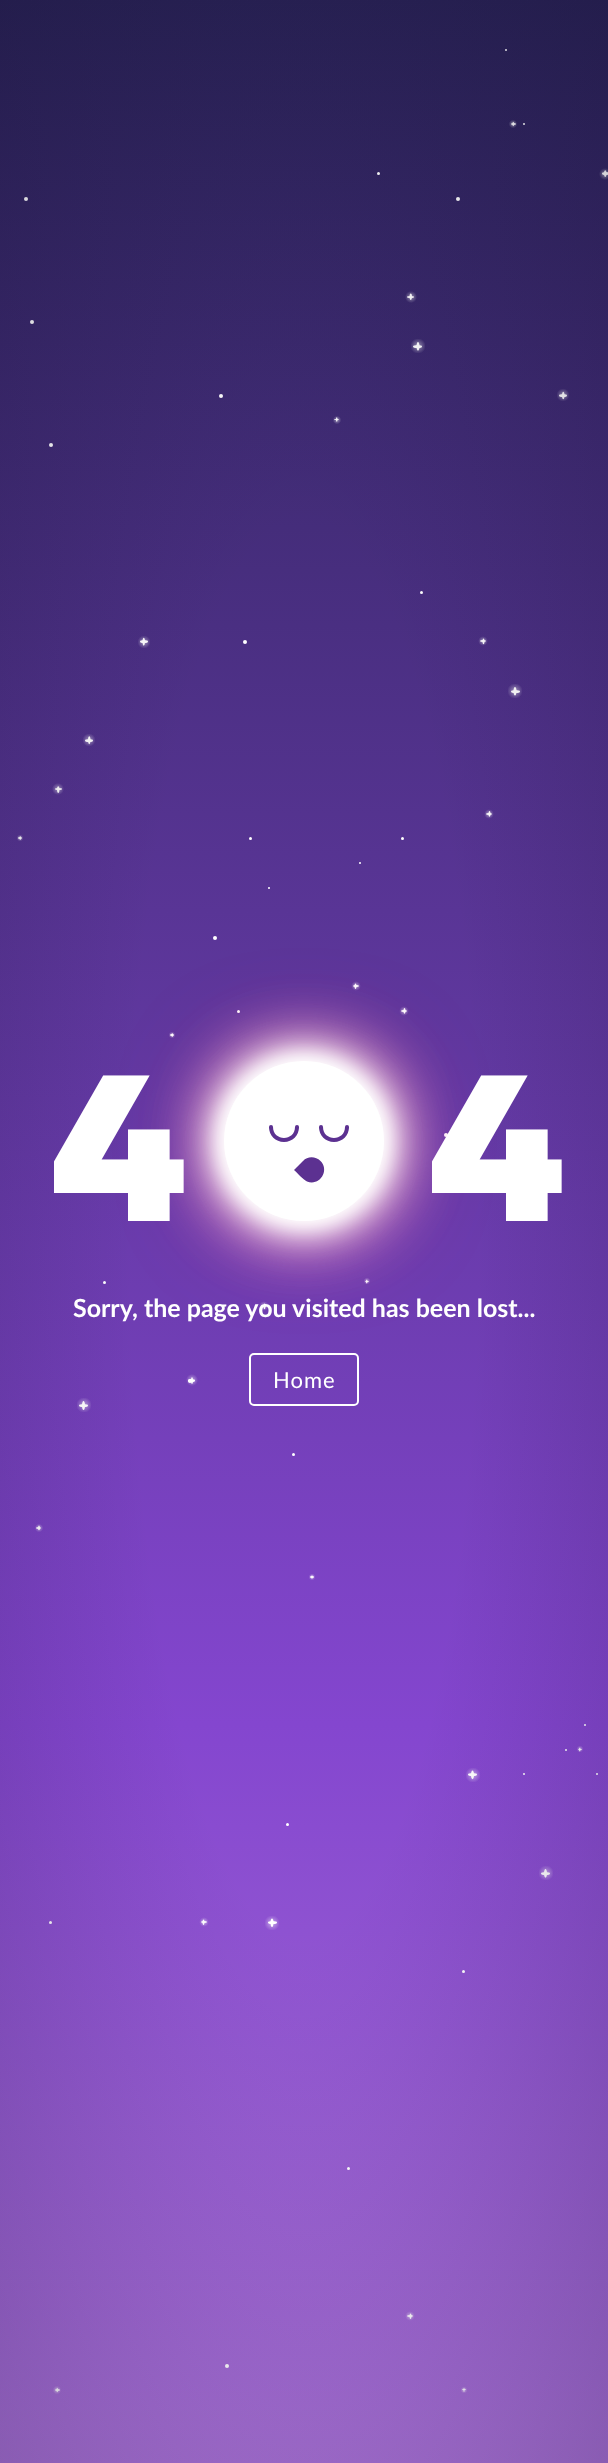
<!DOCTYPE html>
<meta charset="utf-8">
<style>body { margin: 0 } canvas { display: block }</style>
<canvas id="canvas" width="608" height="2463"></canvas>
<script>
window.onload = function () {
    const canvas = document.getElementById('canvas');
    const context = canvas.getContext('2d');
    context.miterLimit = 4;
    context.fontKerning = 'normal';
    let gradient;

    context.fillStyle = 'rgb(255, 255, 255)';
    context.fillRect(0, 0, 608, 2463);
    gradient = context.createLinearGradient(304, 0, 304, 2463);
    gradient.addColorStop(0, 'rgb(41, 34, 86)');
    gradient.addColorStop(0.7, 'rgb(132, 70, 207)');
    gradient.addColorStop(1, 'rgb(168, 113, 214)');
    context.fillStyle = gradient;
    context.fillRect(0, 0, 608, 2463);
    context.fillStyle = 'rgb(255, 255, 255)';
    context.beginPath();
    context.arc(506, 50, 1, 0, 2 * Math.PI);
    context.fill();
    context.beginPath();
    context.ellipse(513.5, 124, 2.5, 1, 0, 0, 2 * Math.PI);
    context.fill();
    gradient = context.createRadialGradient(513, 124, 0, 513, 124, 7.1);
    gradient.addColorStop(0, 'rgba(255, 255, 255, 0.5)');
    gradient.addColorStop(0.6, 'rgba(255, 255, 255, 0)');
    gradient.addColorStop(1, 'rgba(255, 255, 255, 0)');
    context.fillStyle = gradient;
    context.fillRect(509, 120, 8, 8);
    context.fillStyle = 'rgb(255, 255, 255)';
    context.beginPath();
    context.moveTo(514, 124);
    context.bezierCurveTo(514, 127, 512.5, 127, 512.5, 124);
    context.bezierCurveTo(512.5, 121, 514, 121, 514, 124);
    context.closePath();
    context.fill();
    context.beginPath();
    context.arc(524, 124, 1, 0, 2 * Math.PI);
    context.fill();
    context.beginPath();
    context.arc(378.5, 173.5, 1.5, 0, 2 * Math.PI);
    context.fill();
    context.beginPath();
    context.ellipse(605.5, 173.5, 3.5, 1.5, 0, 0, 2 * Math.PI);
    context.fill();
    gradient = context.createRadialGradient(605, 174, 0, 605, 174, 10);
    gradient.addColorStop(0, 'rgba(255, 255, 255, 0.5)');
    gradient.addColorStop(0.6, 'rgba(255, 255, 255, 0)');
    gradient.addColorStop(1, 'rgba(255, 255, 255, 0)');
    context.fillStyle = gradient;
    context.fillRect(599, 168, 9, 12);
    context.fillStyle = 'rgb(255, 255, 255)';
    context.beginPath();
    context.moveTo(606.5, 173.5);
    context.bezierCurveTo(606.5, 178, 604, 178, 604, 173.5);
    context.bezierCurveTo(604, 169, 606.5, 169, 606.5, 173.5);
    context.closePath();
    context.fill();
    context.beginPath();
    context.arc(26, 199, 2, 0, 2 * Math.PI);
    context.fill();
    context.beginPath();
    context.arc(458, 199, 2, 0, 2 * Math.PI);
    context.fill();
    context.beginPath();
    context.ellipse(410.5, 297, 3.5, 1, 0, 0, 2 * Math.PI);
    context.fill();
    gradient = context.createRadialGradient(411, 297, 0, 411, 297, 10);
    gradient.addColorStop(0, 'rgba(255, 255, 255, 0.5)');
    gradient.addColorStop(0.6, 'rgba(255, 255, 255, 0)');
    gradient.addColorStop(1, 'rgba(255, 255, 255, 0)');
    context.fillStyle = gradient;
    context.fillRect(405, 291, 12, 12);
    context.fillStyle = 'rgb(255, 255, 255)';
    context.beginPath();
    context.moveTo(412, 296.5);
    context.bezierCurveTo(412, 301, 409.5, 301, 409.5, 296.5);
    context.bezierCurveTo(409.5, 292.5, 412, 292.5, 412, 296.5);
    context.closePath();
    context.fill();
    context.beginPath();
    context.arc(32, 322, 2, 0, 2 * Math.PI);
    context.fill();
    context.beginPath();
    context.ellipse(417.5, 346.5, 4.5, 1.5, 0, 0, 2 * Math.PI);
    context.fill();
    gradient = context.createRadialGradient(418, 346, 0, 418, 346, 13);
    gradient.addColorStop(0, 'rgba(255, 255, 255, 0.5)');
    gradient.addColorStop(0.6, 'rgba(255, 255, 255, 0)');
    gradient.addColorStop(1, 'rgba(255, 255, 255, 0)');
    context.fillStyle = gradient;
    context.fillRect(411, 339, 14, 14);
    context.fillStyle = 'rgb(255, 255, 255)';
    context.beginPath();
    context.moveTo(419.5, 346.5);
    context.bezierCurveTo(419.5, 352, 416.5, 352, 416.5, 346.5);
    context.bezierCurveTo(416.5, 340.5, 419.5, 340.5, 419.5, 346.5);
    context.closePath();
    context.fill();
    context.beginPath();
    context.arc(221, 396, 2, 0, 2 * Math.PI);
    context.fill();
    context.beginPath();
    context.ellipse(563, 395.5, 4, 1.5, 0, 0, 2 * Math.PI);
    context.fill();
    gradient = context.createRadialGradient(563, 395, 0, 563, 395, 11);
    gradient.addColorStop(0, 'rgba(255, 255, 255, 0.5)');
    gradient.addColorStop(0.6, 'rgba(255, 255, 255, 0)');
    gradient.addColorStop(1, 'rgba(255, 255, 255, 0)');
    context.fillStyle = gradient;
    context.fillRect(557, 389, 12, 12);
    context.fillStyle = 'rgb(255, 255, 255)';
    context.beginPath();
    context.moveTo(564.5, 395.5);
    context.bezierCurveTo(564.5, 400.5, 562, 400.5, 562, 395.5);
    context.bezierCurveTo(562, 390.5, 564.5, 390.5, 564.5, 395.5);
    context.closePath();
    context.fill();
    context.beginPath();
    context.ellipse(336.5, 419.5, 2.5, 0.5, 0, 0, 2 * Math.PI);
    context.fill();
    gradient = context.createRadialGradient(337, 420, 0, 337, 420, 7.1);
    gradient.addColorStop(0, 'rgba(255, 255, 255, 0.5)');
    gradient.addColorStop(0.6, 'rgba(255, 255, 255, 0)');
    gradient.addColorStop(1, 'rgba(255, 255, 255, 0)');
    context.fillStyle = gradient;
    context.fillRect(333, 416, 8, 8);
    context.fillStyle = 'rgb(255, 255, 255)';
    context.beginPath();
    context.moveTo(337.5, 419.5);
    context.bezierCurveTo(337.5, 422.5, 336, 422.5, 336, 419.5);
    context.bezierCurveTo(336, 416.5, 337.5, 416.5, 337.5, 419.5);
    context.closePath();
    context.fill();
    context.beginPath();
    context.arc(51, 445, 2, 0, 2 * Math.PI);
    context.fill();
    context.beginPath();
    context.arc(421.5, 592.5, 1.5, 0, 2 * Math.PI);
    context.fill();
    context.beginPath();
    context.ellipse(144, 641.5, 4, 1.5, 0, 0, 2 * Math.PI);
    context.fill();
    gradient = context.createRadialGradient(144, 642, 0, 144, 642, 11);
    gradient.addColorStop(0, 'rgba(255, 255, 255, 0.5)');
    gradient.addColorStop(0.6, 'rgba(255, 255, 255, 0)');
    gradient.addColorStop(1, 'rgba(255, 255, 255, 0)');
    context.fillStyle = gradient;
    context.fillRect(138, 636, 12, 12);
    context.fillStyle = 'rgb(255, 255, 255)';
    context.beginPath();
    context.moveTo(145, 641.5);
    context.bezierCurveTo(145, 647, 142.5, 647, 142.5, 641.5);
    context.bezierCurveTo(142.5, 636.5, 145, 636.5, 145, 641.5);
    context.closePath();
    context.fill();
    context.beginPath();
    context.arc(245, 642, 2, 0, 2 * Math.PI);
    context.fill();
    context.beginPath();
    context.ellipse(483, 641, 3, 1, 0, 0, 2 * Math.PI);
    context.fill();
    gradient = context.createRadialGradient(483, 641, 0, 483, 641, 8);
    gradient.addColorStop(0, 'rgba(255, 255, 255, 0.5)');
    gradient.addColorStop(0.6, 'rgba(255, 255, 255, 0)');
    gradient.addColorStop(1, 'rgba(255, 255, 255, 0)');
    context.fillStyle = gradient;
    context.fillRect(478, 636, 10, 10);
    context.fillStyle = 'rgb(255, 255, 255)';
    context.beginPath();
    context.moveTo(484.5, 641.5);
    context.bezierCurveTo(484.5, 645, 482.5, 645, 482.5, 641.5);
    context.bezierCurveTo(482.5, 637.5, 484.5, 637.5, 484.5, 641.5);
    context.closePath();
    context.fill();
    context.beginPath();
    context.ellipse(515.5, 691.5, 4.5, 1.5, 0, 0, 2 * Math.PI);
    context.fill();
    gradient = context.createRadialGradient(515, 691, 0, 515, 691, 13);
    gradient.addColorStop(0, 'rgba(255, 255, 255, 0.5)');
    gradient.addColorStop(0.6, 'rgba(255, 255, 255, 0)');
    gradient.addColorStop(1, 'rgba(255, 255, 255, 0)');
    context.fillStyle = gradient;
    context.fillRect(508, 684, 14, 14);
    context.fillStyle = 'rgb(255, 255, 255)';
    context.beginPath();
    context.moveTo(516.5, 691);
    context.bezierCurveTo(516.5, 697, 513.5, 697, 513.5, 691);
    context.bezierCurveTo(513.5, 685.5, 516.5, 685.5, 516.5, 691);
    context.closePath();
    context.fill();
    context.beginPath();
    context.ellipse(89, 740.5, 4, 1.5, 0, 0, 2 * Math.PI);
    context.fill();
    gradient = context.createRadialGradient(89, 740, 0, 89, 740, 11);
    gradient.addColorStop(0, 'rgba(255, 255, 255, 0.5)');
    gradient.addColorStop(0.6, 'rgba(255, 255, 255, 0)');
    gradient.addColorStop(1, 'rgba(255, 255, 255, 0)');
    context.fillStyle = gradient;
    context.fillRect(83, 734, 12, 12);
    context.fillStyle = 'rgb(255, 255, 255)';
    context.beginPath();
    context.moveTo(90.5, 740);
    context.bezierCurveTo(90.5, 745.5, 88, 745.5, 88, 740);
    context.bezierCurveTo(88, 735, 90.5, 735, 90.5, 740);
    context.closePath();
    context.fill();
    context.beginPath();
    context.ellipse(58.5, 789, 3.5, 1, 0, 0, 2 * Math.PI);
    context.fill();
    gradient = context.createRadialGradient(58, 789, 0, 58, 789, 10);
    gradient.addColorStop(0, 'rgba(255, 255, 255, 0.5)');
    gradient.addColorStop(0.6, 'rgba(255, 255, 255, 0)');
    gradient.addColorStop(1, 'rgba(255, 255, 255, 0)');
    context.fillStyle = gradient;
    context.fillRect(52, 783, 12, 12);
    context.fillStyle = 'rgb(255, 255, 255)';
    context.beginPath();
    context.moveTo(59.5, 789.5);
    context.bezierCurveTo(59.5, 794, 57, 794, 57, 789.5);
    context.bezierCurveTo(57, 785, 59.5, 785, 59.5, 789.5);
    context.closePath();
    context.fill();
    context.beginPath();
    context.ellipse(489, 814, 3, 1, 0, 0, 2 * Math.PI);
    context.fill();
    gradient = context.createRadialGradient(489, 814, 0, 489, 814, 8);
    gradient.addColorStop(0, 'rgba(255, 255, 255, 0.5)');
    gradient.addColorStop(0.6, 'rgba(255, 255, 255, 0)');
    gradient.addColorStop(1, 'rgba(255, 255, 255, 0)');
    context.fillStyle = gradient;
    context.fillRect(484, 809, 10, 10);
    context.fillStyle = 'rgb(255, 255, 255)';
    context.beginPath();
    context.moveTo(490.5, 814);
    context.bezierCurveTo(490.5, 817.5, 488.5, 817.5, 488.5, 814);
    context.bezierCurveTo(488.5, 810, 490.5, 810, 490.5, 814);
    context.closePath();
    context.fill();
    context.beginPath();
    context.ellipse(20, 838, 2, 1, 0, 0, 2 * Math.PI);
    context.fill();
    gradient = context.createRadialGradient(20, 838, 0, 20, 838, 5.7);
    gradient.addColorStop(0, 'rgba(255, 255, 255, 0.5)');
    gradient.addColorStop(0.6, 'rgba(255, 255, 255, 0)');
    gradient.addColorStop(1, 'rgba(255, 255, 255, 0)');
    context.fillStyle = gradient;
    context.fillRect(16, 835, 8, 6);
    context.fillStyle = 'rgb(255, 255, 255)';
    context.beginPath();
    context.moveTo(21, 838);
    context.bezierCurveTo(21, 840.5, 19.5, 840.5, 19.5, 838);
    context.bezierCurveTo(19.5, 835.5, 21, 835.5, 21, 838);
    context.closePath();
    context.fill();
    context.beginPath();
    context.arc(250.5, 838.5, 1.5, 0, 2 * Math.PI);
    context.fill();
    context.beginPath();
    context.arc(402.5, 838.5, 1.5, 0, 2 * Math.PI);
    context.fill();
    context.beginPath();
    context.arc(360, 863, 1, 0, 2 * Math.PI);
    context.fill();
    context.beginPath();
    context.arc(269, 888, 1, 0, 2 * Math.PI);
    context.fill();
    context.beginPath();
    context.arc(215, 938, 2, 0, 2 * Math.PI);
    context.fill();
    context.beginPath();
    context.ellipse(356, 986, 3, 1, 0, 0, 2 * Math.PI);
    context.fill();
    gradient = context.createRadialGradient(356, 986, 0, 356, 986, 8);
    gradient.addColorStop(0, 'rgba(255, 255, 255, 0.5)');
    gradient.addColorStop(0.6, 'rgba(255, 255, 255, 0)');
    gradient.addColorStop(1, 'rgba(255, 255, 255, 0)');
    context.fillStyle = gradient;
    context.fillRect(351, 981, 10, 10);
    context.fillStyle = 'rgb(255, 255, 255)';
    context.beginPath();
    context.moveTo(356.5, 986);
    context.bezierCurveTo(356.5, 990, 354.5, 990, 354.5, 986);
    context.bezierCurveTo(354.5, 982.5, 356.5, 982.5, 356.5, 986);
    context.closePath();
    context.fill();
    context.beginPath();
    context.arc(238.5, 1011.5, 1.5, 0, 2 * Math.PI);
    context.fill();
    context.beginPath();
    context.ellipse(404, 1011, 3, 1, 0, 0, 2 * Math.PI);
    context.fill();
    gradient = context.createRadialGradient(404, 1011, 0, 404, 1011, 8);
    gradient.addColorStop(0, 'rgba(255, 255, 255, 0.5)');
    gradient.addColorStop(0.6, 'rgba(255, 255, 255, 0)');
    gradient.addColorStop(1, 'rgba(255, 255, 255, 0)');
    context.fillStyle = gradient;
    context.fillRect(399, 1006, 10, 10);
    context.fillStyle = 'rgb(255, 255, 255)';
    context.beginPath();
    context.moveTo(405.5, 1011);
    context.bezierCurveTo(405.5, 1014.5, 403.5, 1014.5, 403.5, 1011);
    context.bezierCurveTo(403.5, 1007, 405.5, 1007, 405.5, 1011);
    context.closePath();
    context.fill();
    context.beginPath();
    context.ellipse(172, 1035, 2, 1, 0, 0, 2 * Math.PI);
    context.fill();
    gradient = context.createRadialGradient(172, 1035, 0, 172, 1035, 5.7);
    gradient.addColorStop(0, 'rgba(255, 255, 255, 0.5)');
    gradient.addColorStop(0.6, 'rgba(255, 255, 255, 0)');
    gradient.addColorStop(1, 'rgba(255, 255, 255, 0)');
    context.fillStyle = gradient;
    context.fillRect(168, 1032, 8, 6);
    context.fillStyle = 'rgb(255, 255, 255)';
    context.beginPath();
    context.moveTo(173, 1035);
    context.bezierCurveTo(173, 1037.5, 171.5, 1037.5, 171.5, 1035);
    context.bezierCurveTo(171.5, 1032.5, 173, 1032.5, 173, 1035);
    context.closePath();
    context.fill();
    context.beginPath();
    context.arc(446, 1135, 2, 0, 2 * Math.PI);
    context.fill();
    context.beginPath();
    context.arc(104.5, 1282.5, 1.5, 0, 2 * Math.PI);
    context.fill();
    context.beginPath();
    context.ellipse(367, 1281.5, 2, 0.5, 0, 0, 2 * Math.PI);
    context.fill();
    gradient = context.createRadialGradient(367, 1281, 0, 367, 1281, 5.7);
    gradient.addColorStop(0, 'rgba(255, 255, 255, 0.5)');
    gradient.addColorStop(0.6, 'rgba(255, 255, 255, 0)');
    gradient.addColorStop(1, 'rgba(255, 255, 255, 0)');
    context.fillStyle = gradient;
    context.fillRect(363, 1278, 8, 6);
    context.fillStyle = 'rgb(255, 255, 255)';
    context.beginPath();
    context.moveTo(367.5, 1281.5);
    context.bezierCurveTo(367.5, 1284, 366, 1284, 366, 1281.5);
    context.bezierCurveTo(366, 1279, 367.5, 1279, 367.5, 1281.5);
    context.closePath();
    context.fill();
    context.beginPath();
    context.ellipse(264, 1306, 3, 1, 0, 0, 2 * Math.PI);
    context.fill();
    gradient = context.createRadialGradient(264, 1306, 0, 264, 1306, 8);
    gradient.addColorStop(0, 'rgba(255, 255, 255, 0.5)');
    gradient.addColorStop(0.6, 'rgba(255, 255, 255, 0)');
    gradient.addColorStop(1, 'rgba(255, 255, 255, 0)');
    context.fillStyle = gradient;
    context.fillRect(259, 1301, 10, 10);
    context.fillStyle = 'rgb(255, 255, 255)';
    context.beginPath();
    context.moveTo(265.5, 1306.5);
    context.bezierCurveTo(265.5, 1310, 263.5, 1310, 263.5, 1306.5);
    context.bezierCurveTo(263.5, 1302.5, 265.5, 1302.5, 265.5, 1306.5);
    context.closePath();
    context.fill();
    context.beginPath();
    context.ellipse(191.5, 1380.5, 3.5, 1.5, 0, 0, 2 * Math.PI);
    context.fill();
    gradient = context.createRadialGradient(192, 1380, 0, 192, 1380, 10);
    gradient.addColorStop(0, 'rgba(255, 255, 255, 0.5)');
    gradient.addColorStop(0.6, 'rgba(255, 255, 255, 0)');
    gradient.addColorStop(1, 'rgba(255, 255, 255, 0)');
    context.fillStyle = gradient;
    context.fillRect(186, 1374, 12, 12);
    context.fillStyle = 'rgb(255, 255, 255)';
    context.beginPath();
    context.moveTo(193, 1380.5);
    context.bezierCurveTo(193, 1385, 191, 1385, 191, 1380.5);
    context.bezierCurveTo(191, 1376, 193, 1376, 193, 1380.5);
    context.closePath();
    context.fill();
    context.beginPath();
    context.arc(190, 1381, 2, 0, 2 * Math.PI);
    context.fill();
    context.beginPath();
    context.ellipse(83.5, 1405.5, 4.5, 1.5, 0, 0, 2 * Math.PI);
    context.fill();
    gradient = context.createRadialGradient(84, 1405, 0, 84, 1405, 13);
    gradient.addColorStop(0, 'rgba(255, 255, 255, 0.5)');
    gradient.addColorStop(0.6, 'rgba(255, 255, 255, 0)');
    gradient.addColorStop(1, 'rgba(255, 255, 255, 0)');
    context.fillStyle = gradient;
    context.fillRect(77, 1398, 14, 14);
    context.fillStyle = 'rgb(255, 255, 255)';
    context.beginPath();
    context.moveTo(85, 1405.5);
    context.bezierCurveTo(85, 1411.5, 82, 1411.5, 82, 1405.5);
    context.bezierCurveTo(82, 1399.5, 85, 1399.5, 85, 1405.5);
    context.closePath();
    context.fill();
    context.beginPath();
    context.arc(293.5, 1454.5, 1.5, 0, 2 * Math.PI);
    context.fill();
    context.beginPath();
    context.ellipse(38.5, 1528, 2.5, 1, 0, 0, 2 * Math.PI);
    context.fill();
    gradient = context.createRadialGradient(39, 1528, 0, 39, 1528, 7.1);
    gradient.addColorStop(0, 'rgba(255, 255, 255, 0.5)');
    gradient.addColorStop(0.6, 'rgba(255, 255, 255, 0)');
    gradient.addColorStop(1, 'rgba(255, 255, 255, 0)');
    context.fillStyle = gradient;
    context.fillRect(35, 1524, 8, 8);
    context.fillStyle = 'rgb(255, 255, 255)';
    context.beginPath();
    context.moveTo(40, 1528);
    context.bezierCurveTo(40, 1531, 38, 1531, 38, 1528);
    context.bezierCurveTo(38, 1524.5, 40, 1524.5, 40, 1528);
    context.closePath();
    context.fill();
    context.beginPath();
    context.ellipse(312, 1577, 2, 1, 0, 0, 2 * Math.PI);
    context.fill();
    gradient = context.createRadialGradient(312, 1577, 0, 312, 1577, 5.7);
    gradient.addColorStop(0, 'rgba(255, 255, 255, 0.5)');
    gradient.addColorStop(0.6, 'rgba(255, 255, 255, 0)');
    gradient.addColorStop(1, 'rgba(255, 255, 255, 0)');
    context.fillStyle = gradient;
    context.fillRect(308, 1574, 8, 6);
    context.fillStyle = 'rgb(255, 255, 255)';
    context.beginPath();
    context.moveTo(312.5, 1577);
    context.bezierCurveTo(312.5, 1579.5, 311.5, 1579.5, 311.5, 1577);
    context.bezierCurveTo(311.5, 1574.5, 312.5, 1574.5, 312.5, 1577);
    context.closePath();
    context.fill();
    context.beginPath();
    context.arc(585, 1725, 1, 0, 2 * Math.PI);
    context.fill();
    context.beginPath();
    context.arc(566, 1750, 1, 0, 2 * Math.PI);
    context.fill();
    context.beginPath();
    context.ellipse(580, 1749.5, 2, 0.5, 0, 0, 2 * Math.PI);
    context.fill();
    gradient = context.createRadialGradient(580, 1749, 0, 580, 1749, 5.7);
    gradient.addColorStop(0, 'rgba(255, 255, 255, 0.5)');
    gradient.addColorStop(0.6, 'rgba(255, 255, 255, 0)');
    gradient.addColorStop(1, 'rgba(255, 255, 255, 0)');
    context.fillStyle = gradient;
    context.fillRect(576, 1746, 8, 6);
    context.fillStyle = 'rgb(255, 255, 255)';
    context.beginPath();
    context.moveTo(580.5, 1749.5);
    context.bezierCurveTo(580.5, 1752, 579, 1752, 579, 1749.5);
    context.bezierCurveTo(579, 1747, 580.5, 1747, 580.5, 1749.5);
    context.closePath();
    context.fill();
    context.beginPath();
    context.ellipse(472.5, 1774.5, 4.5, 1.5, 0, 0, 2 * Math.PI);
    context.fill();
    gradient = context.createRadialGradient(473, 1775, 0, 473, 1775, 13);
    gradient.addColorStop(0, 'rgba(255, 255, 255, 0.5)');
    gradient.addColorStop(0.6, 'rgba(255, 255, 255, 0)');
    gradient.addColorStop(1, 'rgba(255, 255, 255, 0)');
    context.fillStyle = gradient;
    context.fillRect(466, 1768, 14, 14);
    context.fillStyle = 'rgb(255, 255, 255)';
    context.beginPath();
    context.moveTo(474, 1775);
    context.bezierCurveTo(474, 1780.5, 471, 1780.5, 471, 1775);
    context.bezierCurveTo(471, 1769, 474, 1769, 474, 1775);
    context.closePath();
    context.fill();
    context.beginPath();
    context.arc(524, 1774, 1, 0, 2 * Math.PI);
    context.fill();
    context.beginPath();
    context.arc(597, 1774, 1, 0, 2 * Math.PI);
    context.fill();
    context.beginPath();
    context.arc(287.5, 1824.5, 1.5, 0, 2 * Math.PI);
    context.fill();
    context.beginPath();
    context.ellipse(545.5, 1873.5, 4.5, 1.5, 0, 0, 2 * Math.PI);
    context.fill();
    gradient = context.createRadialGradient(546, 1873, 0, 546, 1873, 13);
    gradient.addColorStop(0, 'rgba(255, 255, 255, 0.5)');
    gradient.addColorStop(0.6, 'rgba(255, 255, 255, 0)');
    gradient.addColorStop(1, 'rgba(255, 255, 255, 0)');
    context.fillStyle = gradient;
    context.fillRect(539, 1866, 14, 14);
    context.fillStyle = 'rgb(255, 255, 255)';
    context.beginPath();
    context.moveTo(547, 1873.5);
    context.bezierCurveTo(547, 1879, 544, 1879, 544, 1873.5);
    context.bezierCurveTo(544, 1867.5, 547, 1867.5, 547, 1873.5);
    context.closePath();
    context.fill();
    context.beginPath();
    context.arc(50.5, 1922.5, 1.5, 0, 2 * Math.PI);
    context.fill();
    context.beginPath();
    context.ellipse(204, 1922, 3, 1, 0, 0, 2 * Math.PI);
    context.fill();
    gradient = context.createRadialGradient(204, 1922, 0, 204, 1922, 8);
    gradient.addColorStop(0, 'rgba(255, 255, 255, 0.5)');
    gradient.addColorStop(0.6, 'rgba(255, 255, 255, 0)');
    gradient.addColorStop(1, 'rgba(255, 255, 255, 0)');
    context.fillStyle = gradient;
    context.fillRect(199, 1917, 10, 10);
    context.fillStyle = 'rgb(255, 255, 255)';
    context.beginPath();
    context.moveTo(204.5, 1922);
    context.bezierCurveTo(204.5, 1926, 202.5, 1926, 202.5, 1922);
    context.bezierCurveTo(202.5, 1918.5, 204.5, 1918.5, 204.5, 1922);
    context.closePath();
    context.fill();
    context.beginPath();
    context.ellipse(272.5, 1922.5, 4.5, 1.5, 0, 0, 2 * Math.PI);
    context.fill();
    gradient = context.createRadialGradient(272, 1923, 0, 272, 1923, 13);
    gradient.addColorStop(0, 'rgba(255, 255, 255, 0.5)');
    gradient.addColorStop(0.6, 'rgba(255, 255, 255, 0)');
    gradient.addColorStop(1, 'rgba(255, 255, 255, 0)');
    context.fillStyle = gradient;
    context.fillRect(265, 1916, 14, 14);
    context.fillStyle = 'rgb(255, 255, 255)';
    context.beginPath();
    context.moveTo(273.5, 1922.5);
    context.bezierCurveTo(273.5, 1928.5, 270.5, 1928.5, 270.5, 1922.5);
    context.bezierCurveTo(270.5, 1917, 273.5, 1917, 273.5, 1922.5);
    context.closePath();
    context.fill();
    context.beginPath();
    context.arc(463.5, 1971.5, 1.5, 0, 2 * Math.PI);
    context.fill();
    context.beginPath();
    context.arc(348.5, 2168.5, 1.5, 0, 2 * Math.PI);
    context.fill();
    context.beginPath();
    context.ellipse(410, 2316, 3, 1, 0, 0, 2 * Math.PI);
    context.fill();
    gradient = context.createRadialGradient(410, 2316, 0, 410, 2316, 8);
    gradient.addColorStop(0, 'rgba(255, 255, 255, 0.5)');
    gradient.addColorStop(0.6, 'rgba(255, 255, 255, 0)');
    gradient.addColorStop(1, 'rgba(255, 255, 255, 0)');
    context.fillStyle = gradient;
    context.fillRect(405, 2311, 10, 10);
    context.fillStyle = 'rgb(255, 255, 255)';
    context.beginPath();
    context.moveTo(411.5, 2316);
    context.bezierCurveTo(411.5, 2320, 409.5, 2320, 409.5, 2316);
    context.bezierCurveTo(409.5, 2312.5, 411.5, 2312.5, 411.5, 2316);
    context.closePath();
    context.fill();
    context.beginPath();
    context.arc(227, 2366, 2, 0, 2 * Math.PI);
    context.fill();
    context.beginPath();
    context.ellipse(57.5, 2390, 2.5, 1, 0, 0, 2 * Math.PI);
    context.fill();
    gradient = context.createRadialGradient(57, 2390, 0, 57, 2390, 7.1);
    gradient.addColorStop(0, 'rgba(255, 255, 255, 0.5)');
    gradient.addColorStop(0.6, 'rgba(255, 255, 255, 0)');
    gradient.addColorStop(1, 'rgba(255, 255, 255, 0)');
    context.fillStyle = gradient;
    context.fillRect(53, 2386, 8, 8);
    context.fillStyle = 'rgb(255, 255, 255)';
    context.beginPath();
    context.moveTo(58, 2390);
    context.bezierCurveTo(58, 2393, 56.5, 2393, 56.5, 2390);
    context.bezierCurveTo(56.5, 2387, 58, 2387, 58, 2390);
    context.closePath();
    context.fill();
    context.beginPath();
    context.ellipse(464, 2389.5, 2, 0.5, 0, 0, 2 * Math.PI);
    context.fill();
    gradient = context.createRadialGradient(464, 2390, 0, 464, 2390, 5.7);
    gradient.addColorStop(0, 'rgba(255, 255, 255, 0.5)');
    gradient.addColorStop(0.6, 'rgba(255, 255, 255, 0)');
    gradient.addColorStop(1, 'rgba(255, 255, 255, 0)');
    context.fillStyle = gradient;
    context.fillRect(460, 2387, 8, 6);
    context.fillStyle = 'rgb(255, 255, 255)';
    context.beginPath();
    context.moveTo(464.5, 2390);
    context.bezierCurveTo(464.5, 2392.5, 463.5, 2392.5, 463.5, 2390);
    context.bezierCurveTo(463.5, 2387, 464.5, 2387, 464.5, 2390);
    context.closePath();
    context.fill();
    gradient = context.createRadialGradient(304, 304.11, 0, 304, 304.11, 430);
    gradient.addColorStop(0, 'rgba(255, 255, 255, 0)');
    gradient.addColorStop(0.4, 'rgba(15, 10, 38, 0)');
    gradient.addColorStop(1, 'rgba(15, 10, 38, 0.2)');
    context.fillStyle = gradient;
    context.beginPath();
    context.rect(0, 0, 608, 2463);
    context.save();
    context.clip();
    context.scale(1, 1742 / 430);
    context.fillRect(0, 0, 608, 608);
    context.restore();
    context.beginPath();
    context.roundRect(250, 1354, 108, 51, 4);
    context.strokeStyle = 'rgb(255, 255, 255)';
    context.lineWidth = 2;
    context.stroke();
    context.fillStyle = 'rgb(255, 17, 119)';
    context.filter = 'blur(50px)';
    context.beginPath();
    context.roundRect(224, 1061, 160, 160, 80);
    context.fill();
    context.filter = 'none';
    context.fillStyle = 'rgb(255, 255, 255)';
    context.filter = 'blur(40px)';
    context.beginPath();
    context.roundRect(224, 1061, 160, 160, 80);
    context.fill();
    context.filter = 'none';
    context.filter = 'blur(35px)';
    context.beginPath();
    context.roundRect(224, 1061, 160, 160, 80);
    context.fill();
    context.filter = 'none';
    context.filter = 'blur(20px)';
    context.beginPath();
    context.roundRect(224, 1061, 160, 160, 80);
    context.fill();
    context.filter = 'none';
    context.filter = 'blur(15px)';
    context.beginPath();
    context.roundRect(224, 1061, 160, 160, 80);
    context.fill();
    context.filter = 'none';
    context.filter = 'blur(10px)';
    context.beginPath();
    context.roundRect(224, 1061, 160, 160, 80);
    context.fill();
    context.filter = 'none';
    context.beginPath();
    context.arc(304, 1141, 80, 0, 2 * Math.PI);
    context.fill();
    context.fillStyle = 'rgb(92, 49, 145)';
    context.beginPath();
    context.moveTo(269, 1127);
    context.lineTo(299, 1127);
    context.bezierCurveTo(299, 1135.5, 292.5, 1142, 284, 1142);
    context.bezierCurveTo(275.5, 1142, 269, 1135.5, 269, 1127);
    context.closePath();
    context.moveTo(273, 1127);
    context.lineTo(295, 1127);
    context.bezierCurveTo(295, 1141.5, 273, 1141.5, 273, 1127);
    context.closePath();
    context.fill('evenodd');
    context.beginPath();
    context.arc(271, 1127, 2, 0, 2 * Math.PI);
    context.fill();
    context.beginPath();
    context.arc(297, 1127, 2, 0, 2 * Math.PI);
    context.fill();
    context.beginPath();
    context.moveTo(319, 1127);
    context.lineTo(349, 1127);
    context.bezierCurveTo(349, 1135.5, 342.5, 1142, 334, 1142);
    context.bezierCurveTo(325.5, 1142, 319, 1135.5, 319, 1127);
    context.closePath();
    context.moveTo(323, 1127);
    context.lineTo(345, 1127);
    context.bezierCurveTo(345, 1141.5, 323, 1141.5, 323, 1127);
    context.closePath();
    context.fill('evenodd');
    context.beginPath();
    context.arc(321, 1127, 2, 0, 2 * Math.PI);
    context.fill();
    context.beginPath();
    context.arc(347, 1127, 2, 0, 2 * Math.PI);
    context.fill();
    context.beginPath();
    context.moveTo(320.5, 1161);
    context.bezierCurveTo(330, 1170.5, 319.5, 1186.5, 307, 1181.5);
    context.bezierCurveTo(303, 1179.5, 297.5, 1173, 294, 1170);
    context.lineTo(303, 1161);
    context.bezierCurveTo(307.5, 1156, 315.5, 1156, 320.5, 1161);
    context.closePath();
    context.fill();
    context.font = 'bold 200px Russo One';
    context.fillStyle = 'rgb(255, 255, 255)';
    context.fillText('4', 50, 1221);
    context.fillText('4', 428, 1221);
    context.font = 'bold 25px Lato';
    context.fillText('Sorry, the page you visited has been lost...', 73, 1317);
    context.letterSpacing = '1px';
    context.font = '22px Lato';
    context.fillText('Home', 273, 1388);
};
</script>
